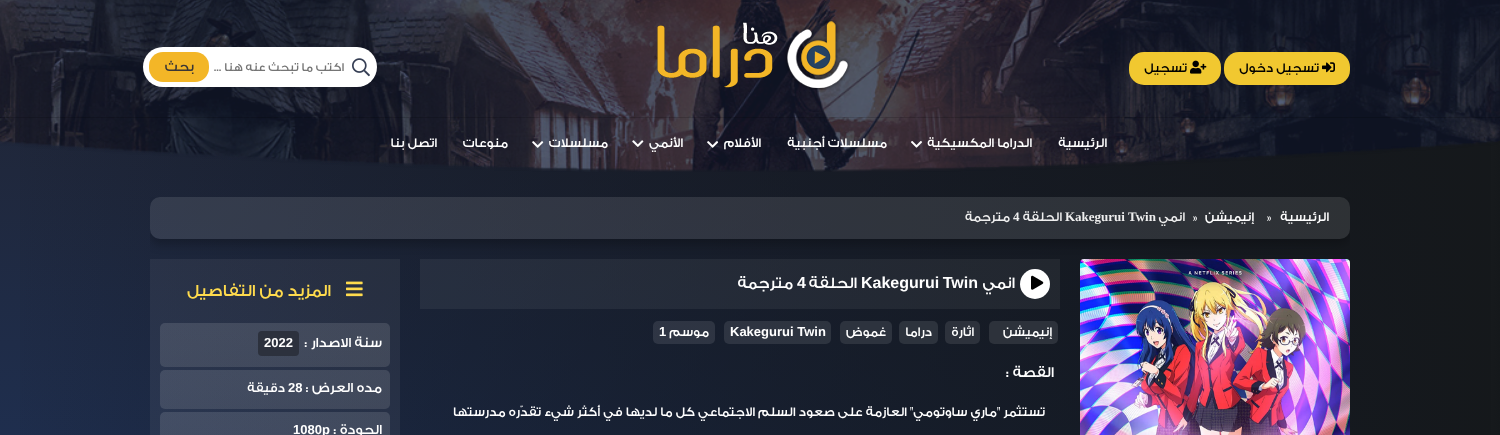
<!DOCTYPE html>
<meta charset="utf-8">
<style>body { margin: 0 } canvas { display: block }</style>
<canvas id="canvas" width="1500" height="435"></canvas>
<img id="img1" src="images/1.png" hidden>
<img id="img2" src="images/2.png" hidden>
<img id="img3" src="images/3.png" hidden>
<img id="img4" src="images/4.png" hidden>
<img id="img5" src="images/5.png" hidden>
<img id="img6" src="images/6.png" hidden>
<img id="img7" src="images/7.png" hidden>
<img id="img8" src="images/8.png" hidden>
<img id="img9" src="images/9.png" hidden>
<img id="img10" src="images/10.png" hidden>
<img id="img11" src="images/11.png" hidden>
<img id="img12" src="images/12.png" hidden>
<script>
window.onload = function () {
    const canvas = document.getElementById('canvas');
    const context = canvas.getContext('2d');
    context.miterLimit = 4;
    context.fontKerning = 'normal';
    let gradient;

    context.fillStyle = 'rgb(255, 255, 255)';
    context.fillRect(0, 0, 1500, 435);
    gradient = context.createLinearGradient(750, 0, 750, 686);
    gradient.addColorStop(0, 'rgb(32, 36, 50)');
    gradient.addColorStop(1, 'rgb(30, 52, 94)');
    context.fillStyle = gradient;
    context.fillRect(0, 0, 1491, 435);
    gradient = context.createLinearGradient(0, 343, 1500, 343);
    gradient.addColorStop(0, 'rgba(9, 9, 9, 0.02)');
    gradient.addColorStop(1, 'rgb(21, 24, 27)');
    context.fillStyle = gradient;
    context.fillRect(20, 0, 1480, 435);
    context.drawImage(document.getElementById('img1'), 0, 0, 1500, 172);
    context.fillStyle = 'rgb(241, 200, 48)';
    context.beginPath();
    context.roundRect(1224, 52, 126, 33, 15);
    context.fill();
    context.drawImage(document.getElementById('img2'), 1322, 62, 13, 11);
    context.beginPath();
    context.roundRect(1129, 52, 92, 33, 15);
    context.fill();
    context.drawImage(document.getElementById('img3'), 1190, 60, 17, 14);
    context.drawImage(document.getElementById('img4'), 657, 20, 193, 70);
    context.fillStyle = 'rgb(255, 255, 255)';
    context.beginPath();
    context.roundRect(143, 47, 234, 40, 20);
    context.fill();
    context.drawImage(document.getElementById('img5'), 352, 58, 18, 19);
    context.fillStyle = 'rgb(243, 182, 39)';
    context.beginPath();
    context.roundRect(149, 52, 60, 30, 14);
    context.fill();
    context.fillStyle = 'rgba(0, 0, 0, 0.15)';
    context.fillRect(0, 117, 1500, 1);
    context.drawImage(document.getElementById('img6'), 911, 141, 11, 7);
    context.drawImage(document.getElementById('img7'), 707, 141, 12, 7);
    context.drawImage(document.getElementById('img8'), 632, 140, 12, 7);
    context.drawImage(document.getElementById('img9'), 532, 141, 12, 7);
    context.save();
    context.beginPath();
    context.rect(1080, 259, 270, 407);
    context.clip();
    context.fillStyle = 'rgba(0, 0, 0, 0.84)';
    context.filter = 'blur(2.5px)';
    context.beginPath();
    context.roundRect(1080, 260, 270, 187, 4);
    context.fill();
    context.filter = 'none';
    context.restore();
    context.drawImage(document.getElementById('img10'), 1080, 259, 270, 176);
    context.fillStyle = 'rgba(255, 255, 255, 0.06)';
    context.fillRect(420, 259, 640, 50);
    context.fillRect(150, 259, 250, 176);
    context.save();
    context.beginPath();
    context.rect(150, 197, 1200, 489);
    context.clip();
    context.beginPath();
    context.moveTo(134, 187);
    context.lineTo(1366, 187);
    context.lineTo(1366, 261);
    context.lineTo(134, 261);
    context.closePath();
    context.moveTo(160, 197);
    context.lineTo(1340, 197);
    context.bezierCurveTo(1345.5, 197, 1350, 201.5, 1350, 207);
    context.lineTo(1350, 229);
    context.bezierCurveTo(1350, 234.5, 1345.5, 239, 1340, 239);
    context.lineTo(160, 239);
    context.bezierCurveTo(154.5, 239, 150, 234.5, 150, 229);
    context.lineTo(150, 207);
    context.bezierCurveTo(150, 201.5, 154.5, 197, 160, 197);
    context.closePath();
    context.clip('evenodd');
    context.fillStyle = 'rgba(0, 0, 0, 0.22)';
    context.filter = 'blur(5px)';
    context.beginPath();
    context.roundRect(150, 203, 1200, 42, 10);
    context.fill();
    context.filter = 'none';
    context.restore();
    context.fillStyle = 'rgba(255, 255, 255, 0.11)';
    context.beginPath();
    context.roundRect(150, 197, 1200, 42, 10);
    context.fill();
    context.fillStyle = 'rgb(255, 255, 255)';
    context.beginPath();
    context.arc(1035, 284, 15, 0, 2 * Math.PI);
    context.fill();
    context.drawImage(document.getElementById('img11'), 1031, 275, 13, 15);
    context.fillStyle = 'rgb(45, 50, 59)';
    context.beginPath();
    context.roundRect(989, 321, 69, 23, 5);
    context.fill();
    context.fillStyle = 'rgb(45, 50, 60)';
    context.beginPath();
    context.roundRect(945, 321, 35, 23, 5);
    context.fill();
    context.fillStyle = 'rgb(45, 51, 61)';
    context.beginPath();
    context.roundRect(899, 321, 39, 23, 5);
    context.fill();
    context.fillStyle = 'rgb(45, 51, 62)';
    context.beginPath();
    context.roundRect(840, 321, 52, 23, 5);
    context.fill();
    context.fillStyle = 'rgba(255, 255, 255, 0.1)';
    context.beginPath();
    context.roundRect(724, 321, 107, 23, 5);
    context.fill();
    context.beginPath();
    context.roundRect(653, 321, 62, 23, 5);
    context.fill();
    context.drawImage(document.getElementById('img12'), 346, 281, 17, 16);
    gradient = context.createLinearGradient(275, 323, 275, 367);
    gradient.addColorStop(0, 'rgba(255, 255, 255, 0.12)');
    gradient.addColorStop(1, 'rgba(204, 204, 204, 0.15)');
    context.fillStyle = gradient;
    context.beginPath();
    context.roundRect(160, 323, 230, 44, 5);
    context.fill();
    context.fillStyle = 'rgb(44, 49, 61)';
    context.beginPath();
    context.roundRect(258, 331, 41, 25, 4);
    context.fill();
    gradient = context.createLinearGradient(275, 370, 275, 409);
    gradient.addColorStop(0, 'rgba(255, 255, 255, 0.12)');
    gradient.addColorStop(1, 'rgba(204, 204, 204, 0.15)');
    context.fillStyle = gradient;
    context.beginPath();
    context.roundRect(160, 370, 230, 39, 5);
    context.fill();
    gradient = context.createLinearGradient(275, 412, 275, 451);
    gradient.addColorStop(0, 'rgba(255, 255, 255, 0.12)');
    gradient.addColorStop(1, 'rgba(204, 204, 204, 0.15)');
    context.fillStyle = gradient;
    context.beginPath();
    context.roundRect(160, 412, 230, 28, 5);
    context.fill();
    context.direction = 'rtl';
    context.font = '500 13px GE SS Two';
    context.fillStyle = 'rgb(0, 0, 0)';
    context.fillText('تسجيل دخول', 1319, 72);
    context.fillText('تسجيل', 1187, 72);
    context.font = '500 12px GE SS Two';
    context.fillStyle = 'rgb(117, 117, 117)';
    context.fillText('اكتب ما تبحث عنه هنا ...', 344, 71);
    context.font = '500 14px GE SS Two';
    context.fillStyle = 'rgb(58, 54, 54)';
    context.fillText('بحث', 194, 71);
    context.font = '500 13px GE SS Two';
    context.fillStyle = 'rgb(255, 255, 255)';
    context.fillText('الرئيسية', 1107, 147);
    context.fillText('الدراما المكسيكية', 1032, 147);
    context.fillText('مسلسلات أجنبية', 887, 147);
    context.fillText('الأفلام', 761, 147);
    context.fillText('الأنمي', 683, 147);
    context.fillText('مسلسلات', 608, 147);
    context.fillText('منوعات', 508, 147);
    context.fillText('اتصل بنا', 437, 147);
    context.fillText('الرئيسية', 1329, 221);
    context.direction = 'ltr';
    context.fillText('»', 1266, 221);
    context.direction = 'rtl';
    context.fillText('إنيميشن', 1254, 221);
    context.direction = 'ltr';
    context.fillText('»', 1192, 221);
    context.direction = 'rtl';
    context.fillStyle = 'rgb(239, 239, 239)';
    context.fillText('انمي', 1185, 221);
    context.direction = 'ltr';
    context.font = 'bold 13px Liberation Serif';
    context.fillText('Kakegurui Twin', 1065, 221);
    context.direction = 'rtl';
    context.font = '500 13px GE SS Two';
    context.fillText('الحلقة', 1062, 221);
    context.direction = 'ltr';
    context.font = 'bold 13px Liberation Serif';
    context.fillText('4', 1013, 221);
    context.direction = 'rtl';
    context.font = '500 13px GE SS Two';
    context.fillText('مترجمة', 1010, 221);
    context.font = '500 16px GE SS Two';
    context.fillStyle = 'rgb(255, 255, 255)';
    context.fillText('انمي', 1015, 288);
    context.wordSpacing = '-1px';
    context.direction = 'ltr';
    context.font = 'bold 16px Liberation Sans';
    context.fillText('Kakegurui Twin', 861, 288);
    context.wordSpacing = '0px';
    context.direction = 'rtl';
    context.font = '500 16px GE SS Two';
    context.fillText('الحلقة', 857, 288);
    context.direction = 'ltr';
    context.font = 'bold 16px Liberation Sans';
    context.fillText('4', 797, 288);
    context.direction = 'rtl';
    context.font = '500 16px GE SS Two';
    context.fillText('مترجمة', 793, 288);
    context.font = '500 13px GE SS Two';
    context.fillText('إنيميشن', 1052, 336);
    context.fillText('اثارة', 974, 336);
    context.fillText('دراما', 932, 336);
    context.fillText('غموض', 886, 336);
    context.direction = 'ltr';
    context.font = 'bold 13px Liberation Sans';
    context.fillText('Kakegurui Twin', 730, 336);
    context.direction = 'rtl';
    context.font = '500 13px GE SS Two';
    context.fillText('موسم', 709, 336);
    context.direction = 'ltr';
    context.font = 'bold 13px Liberation Sans';
    context.fillText('1', 659, 336);
    context.direction = 'rtl';
    context.font = '500 15px GE SS Two';
    context.fillText('القصة :', 1054, 377);
    context.font = '500 13px GE SS Two';
    context.fillText('تستثمر "ماري ساوتومي" العازمة على صعود السلم الاجتماعي كل ما لديها في أكثر شيء تقدّره مدرستها', 1045, 416);
    context.font = '500 17px GE SS Two';
    context.fillStyle = 'rgb(255, 219, 77)';
    context.fillText('المزيد من التفاصيل', 331, 296);
    context.font = '500 14px GE SS Two';
    context.fillStyle = 'rgb(255, 255, 255)';
    context.fillText('سنة الاصدار :', 382, 347);
    context.direction = 'ltr';
    context.font = 'bold 13px Liberation Sans';
    context.fillText('2022', 264, 347);
    context.direction = 'rtl';
    context.font = '500 14px GE SS Two';
    context.fillText('مده العرض :', 382, 392);
    context.direction = 'ltr';
    context.font = 'bold 13px Liberation Sans';
    context.fillText('28', 288, 392);
    context.direction = 'rtl';
    context.font = '500 13px GE SS Two';
    context.fillText('دقيقة', 285, 392);
    context.font = '500 14px GE SS Two';
    context.fillText('الجودة :', 382, 434);
    context.direction = 'ltr';
    context.font = 'bold 13px Liberation Sans';
    context.fillText('1080p', 293, 434);
};
</script>
